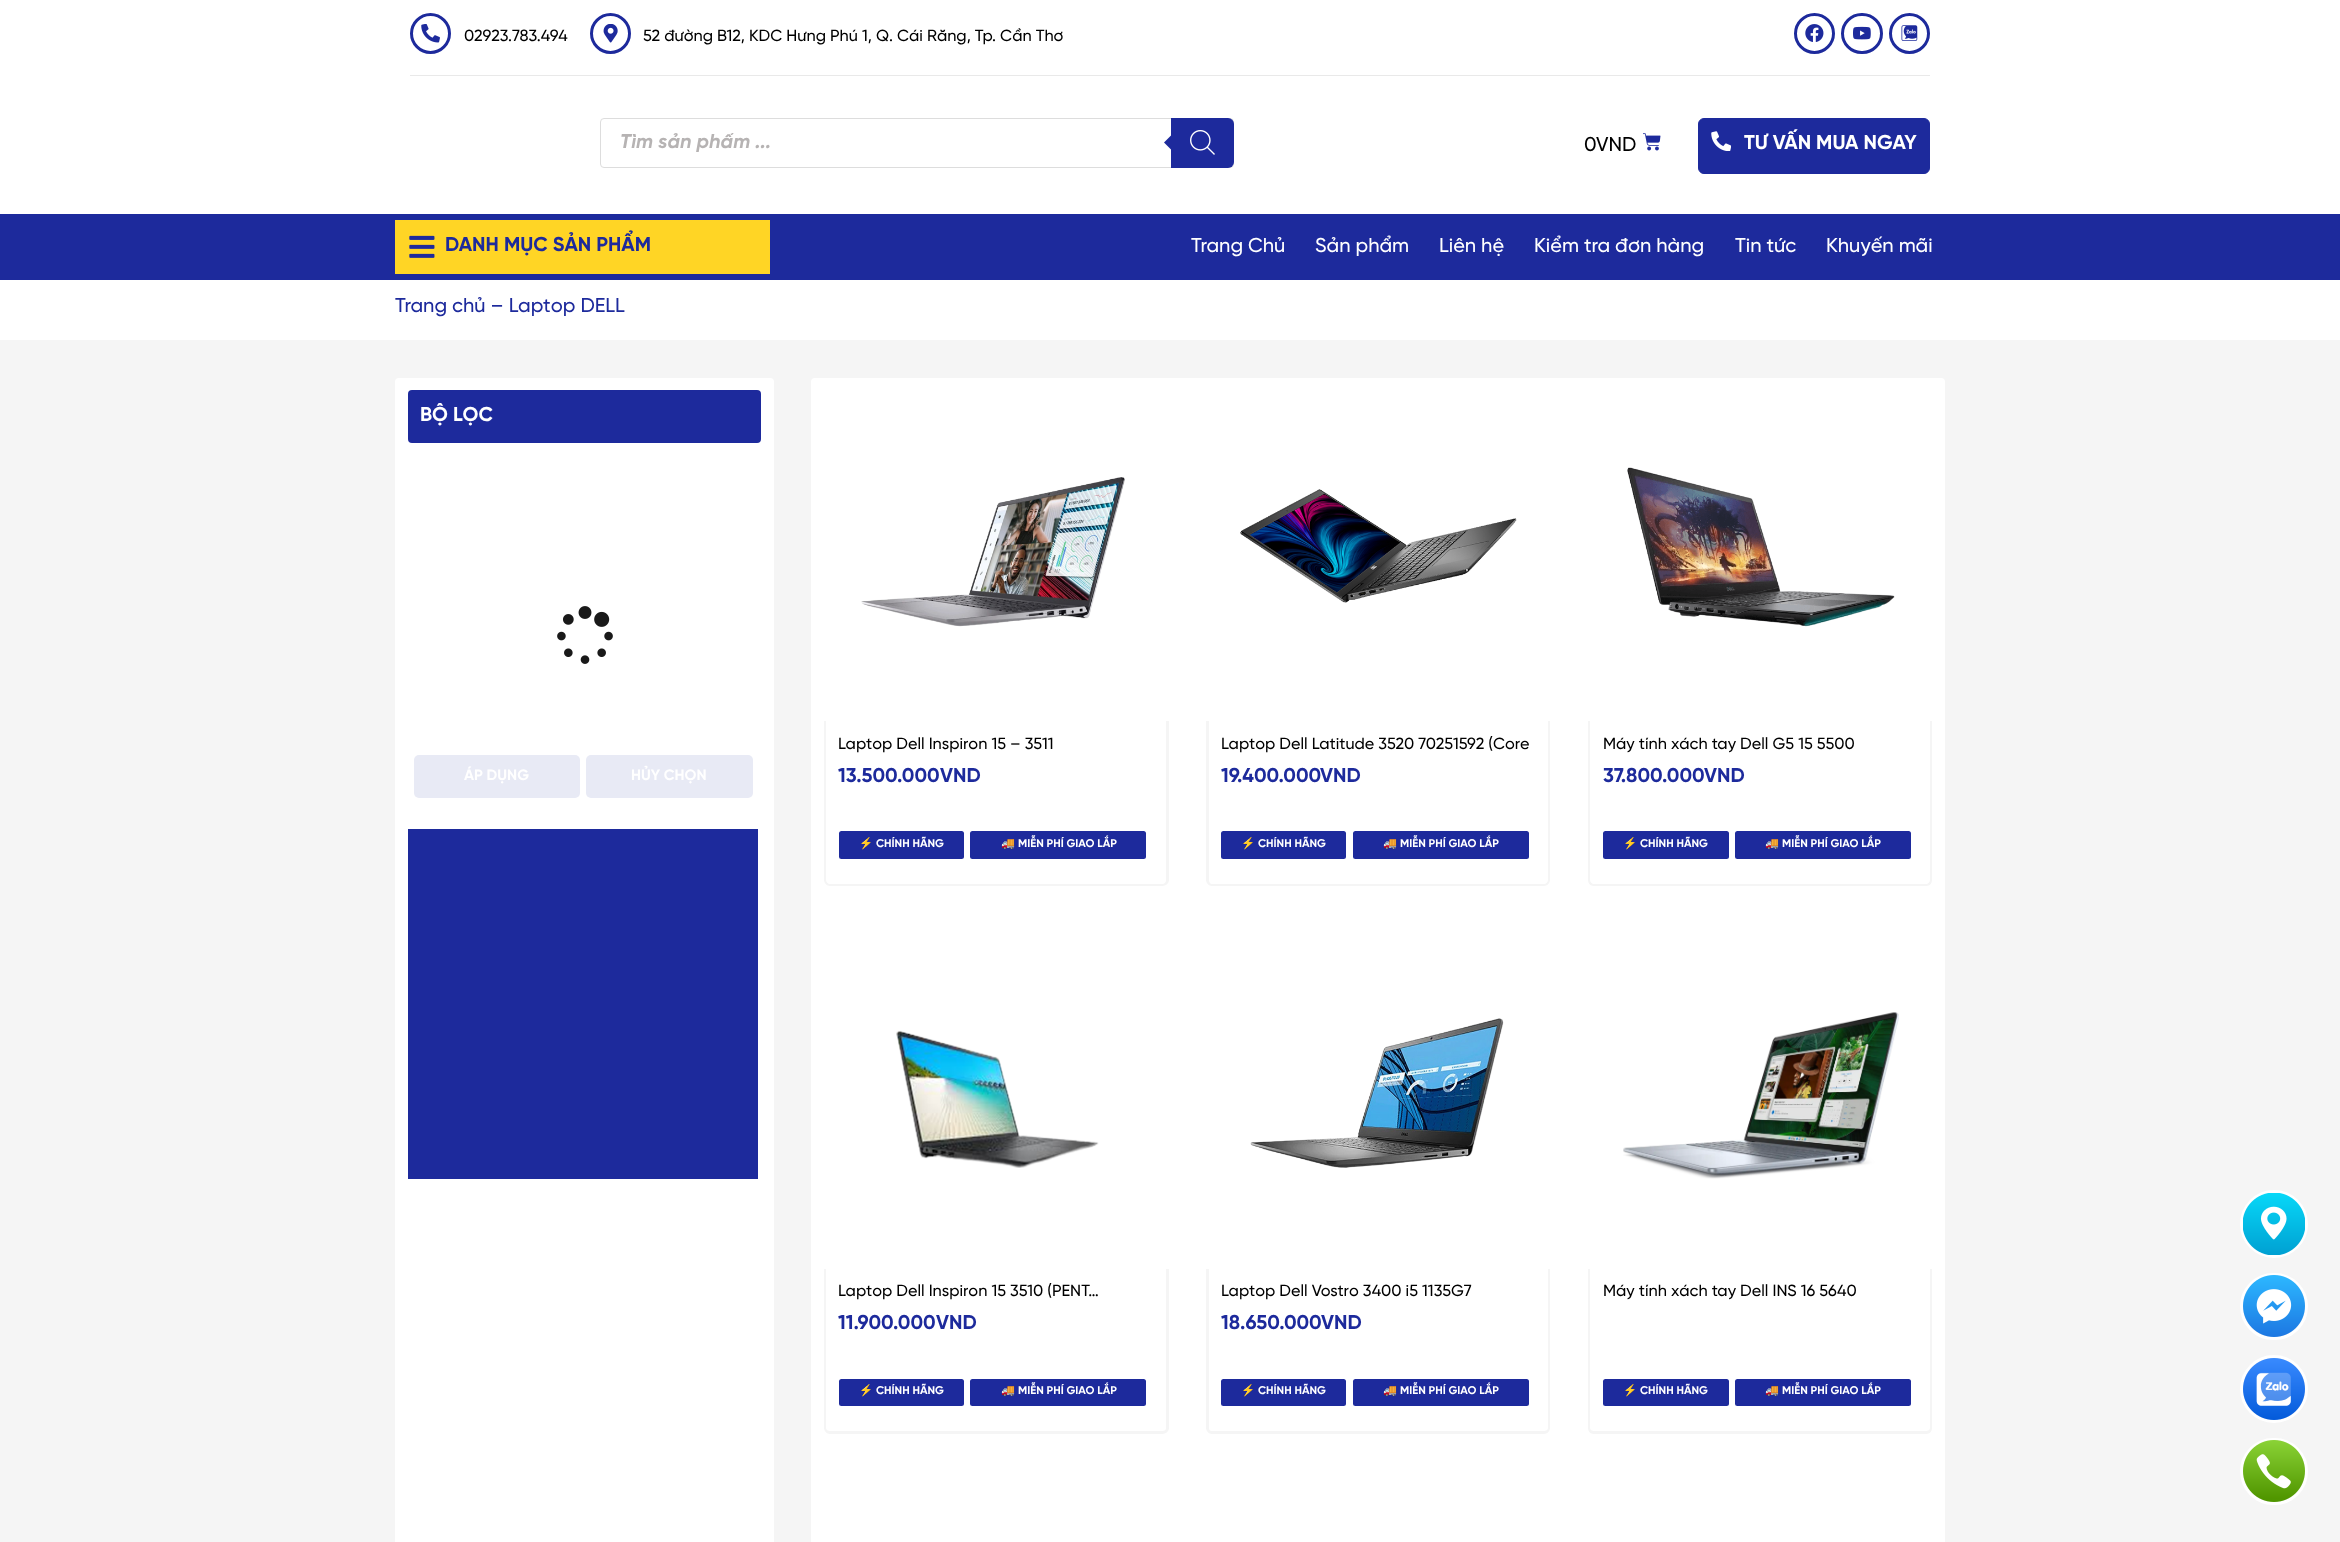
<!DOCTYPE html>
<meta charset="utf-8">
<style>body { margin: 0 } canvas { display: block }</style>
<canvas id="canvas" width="2340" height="1542"></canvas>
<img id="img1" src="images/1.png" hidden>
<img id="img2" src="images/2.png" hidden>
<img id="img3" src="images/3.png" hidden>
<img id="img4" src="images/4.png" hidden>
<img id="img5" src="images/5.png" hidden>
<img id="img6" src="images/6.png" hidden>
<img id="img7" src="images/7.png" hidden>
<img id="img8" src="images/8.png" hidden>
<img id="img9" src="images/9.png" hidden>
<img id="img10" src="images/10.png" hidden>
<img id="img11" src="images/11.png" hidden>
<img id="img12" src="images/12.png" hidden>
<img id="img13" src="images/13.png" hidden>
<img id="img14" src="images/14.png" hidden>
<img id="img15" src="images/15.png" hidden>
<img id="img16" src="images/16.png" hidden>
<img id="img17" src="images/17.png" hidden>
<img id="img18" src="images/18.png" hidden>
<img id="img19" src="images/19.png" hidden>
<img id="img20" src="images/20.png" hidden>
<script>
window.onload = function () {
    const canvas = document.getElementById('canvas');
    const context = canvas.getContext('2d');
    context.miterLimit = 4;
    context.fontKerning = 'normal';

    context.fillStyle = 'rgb(255, 255, 255)';
    context.fillRect(0, 0, 2340, 1542);
    context.fillStyle = 'rgb(233, 233, 233)';
    context.fillRect(410, 75, 1520, 1);
    context.beginPath();
    context.arc(430.5, 33.5, 19, 0, 2 * Math.PI);
    context.strokeStyle = 'rgb(29, 42, 156)';
    context.lineWidth = 3;
    context.stroke();
    context.drawImage(document.getElementById('img1'), 421, 24, 19, 19);
    context.beginPath();
    context.arc(610.5, 33.5, 19, 0, 2 * Math.PI);
    context.stroke();
    context.drawImage(document.getElementById('img2'), 603, 24, 15, 19);
    context.beginPath();
    context.arc(1814.5, 33.5, 19, 0, 2 * Math.PI);
    context.stroke();
    context.drawImage(document.getElementById('img3'), 1805, 24, 19, 18);
    context.beginPath();
    context.roundRect(1842.5, 14.5, 39, 38, 19);
    context.stroke();
    context.drawImage(document.getElementById('img4'), 1853, 26, 18, 14);
    context.beginPath();
    context.arc(1909.5, 33.5, 19, 0, 2 * Math.PI);
    context.stroke();
    context.drawImage(document.getElementById('img5'), 1901, 25, 17, 16);
    context.beginPath();
    context.roundRect(600.5, 118.5, 633, 49, 3.5);
    context.strokeStyle = 'rgb(221, 221, 221)';
    context.lineWidth = 1;
    context.stroke();
    context.fillStyle = 'rgb(29, 42, 156)';
    context.beginPath();
    context.roundRect(1171, 118, 63, 50, [0, 6, 6, 0]);
    context.fill();
    context.beginPath();
    context.moveTo(1174, 132.5);
    context.lineTo(1174, 152.5);
    context.lineTo(1164, 142.5);
    context.closePath();
    context.fill();
    context.drawImage(document.getElementById('img6'), 1190, 130, 25, 25);
    context.drawImage(document.getElementById('img7'), 1643, 133, 18, 18);
    context.beginPath();
    context.roundRect(1698.5, 118.5, 231, 55, 5.5);
    context.fill();
    context.strokeStyle = 'rgb(29, 42, 156)';
    context.stroke();
    context.drawImage(document.getElementById('img8'), 1711, 131, 20, 20);
    context.fillRect(0, 214, 2340, 66);
    context.fillStyle = 'rgb(255, 213, 37)';
    context.fillRect(395, 220, 375, 54);
    context.drawImage(document.getElementById('img9'), 409, 235, 26, 23);
    context.fillStyle = 'rgb(245, 245, 245)';
    context.fillRect(0, 340, 2340, 1202);
    context.fillStyle = 'rgb(255, 255, 255)';
    context.beginPath();
    context.roundRect(395, 378, 379, 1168, 4);
    context.fill();
    context.fillStyle = 'rgb(29, 42, 156)';
    context.beginPath();
    context.roundRect(408, 390, 353, 53, 4);
    context.fill();
    context.drawImage(document.getElementById('img10'), 557, 606, 56, 58);
    context.fillStyle = 'rgb(232, 234, 245)';
    context.beginPath();
    context.roundRect(414, 755, 166, 43, 5);
    context.fill();
    context.beginPath();
    context.roundRect(586, 755, 167, 43, 5);
    context.fill();
    context.fillStyle = 'rgb(29, 42, 156)';
    context.fillRect(408, 829, 350, 350);
    context.fillStyle = 'rgb(255, 255, 255)';
    context.beginPath();
    context.roundRect(811, 378, 1134, 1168, 4);
    context.fill();
    context.drawImage(document.getElementById('img11'), 861, 477, 264, 150);
    context.fillStyle = 'rgb(245, 245, 245)';
    context.beginPath();
    context.moveTo(824, 721);
    context.lineTo(1169, 721);
    context.lineTo(1169, 880);
    context.bezierCurveTo(1169, 883, 1166, 886, 1162, 886);
    context.lineTo(830, 886);
    context.bezierCurveTo(827, 886, 824, 883, 824, 880);
    context.closePath();
    context.moveTo(826, 721);
    context.lineTo(1166, 721);
    context.lineTo(1166, 880);
    context.bezierCurveTo(1166, 882, 1165, 884, 1162, 884);
    context.lineTo(830, 884);
    context.bezierCurveTo(828, 884, 826, 882, 826, 880);
    context.closePath();
    context.fill('evenodd');
    context.fillStyle = 'rgb(29, 42, 156)';
    context.beginPath();
    context.roundRect(839, 831, 125, 28, 2.5);
    context.fill();
    context.beginPath();
    context.roundRect(970, 831, 176, 28, 2.5);
    context.fill();
    context.drawImage(document.getElementById('img12'), 1240, 489, 277, 114);
    context.fillStyle = 'rgb(245, 245, 245)';
    context.beginPath();
    context.moveTo(1206, 721);
    context.lineTo(1550, 721);
    context.lineTo(1550, 880);
    context.bezierCurveTo(1550, 883, 1547, 886, 1544, 886);
    context.lineTo(1212, 886);
    context.bezierCurveTo(1209, 886, 1206, 883, 1206, 880);
    context.closePath();
    context.moveTo(1209, 721);
    context.lineTo(1548, 721);
    context.lineTo(1548, 880);
    context.bezierCurveTo(1548, 882, 1546, 884, 1544, 884);
    context.lineTo(1212, 884);
    context.bezierCurveTo(1210, 884, 1209, 882, 1209, 880);
    context.closePath();
    context.fill('evenodd');
    context.fillStyle = 'rgb(29, 42, 156)';
    context.beginPath();
    context.roundRect(1221, 831, 125, 28, 2.5);
    context.fill();
    context.beginPath();
    context.roundRect(1353, 831, 176, 28, 2.5);
    context.fill();
    context.drawImage(document.getElementById('img13'), 1627, 467, 268, 160);
    context.fillStyle = 'rgb(245, 245, 245)';
    context.beginPath();
    context.moveTo(1588, 721);
    context.lineTo(1932, 721);
    context.lineTo(1932, 880);
    context.bezierCurveTo(1932, 883, 1930, 886, 1926, 886);
    context.lineTo(1594, 886);
    context.bezierCurveTo(1590, 886, 1588, 883, 1588, 880);
    context.closePath();
    context.moveTo(1590, 721);
    context.lineTo(1930, 721);
    context.lineTo(1930, 880);
    context.bezierCurveTo(1930, 882, 1928, 884, 1926, 884);
    context.lineTo(1594, 884);
    context.bezierCurveTo(1592, 884, 1590, 882, 1590, 880);
    context.closePath();
    context.fill('evenodd');
    context.fillStyle = 'rgb(29, 42, 156)';
    context.beginPath();
    context.roundRect(1603, 831, 126, 28, 2.5);
    context.fill();
    context.beginPath();
    context.roundRect(1735, 831, 176, 28, 2.5);
    context.fill();
    context.drawImage(document.getElementById('img14'), 896, 1030, 203, 138);
    context.fillStyle = 'rgb(245, 245, 245)';
    context.beginPath();
    context.moveTo(824, 1269);
    context.lineTo(1169, 1269);
    context.lineTo(1169, 1428);
    context.bezierCurveTo(1169, 1431, 1166, 1434, 1162, 1434);
    context.lineTo(830, 1434);
    context.bezierCurveTo(827, 1434, 824, 1431, 824, 1428);
    context.closePath();
    context.moveTo(826, 1269);
    context.lineTo(1166, 1269);
    context.lineTo(1166, 1428);
    context.bezierCurveTo(1166, 1430, 1165, 1431, 1162, 1431);
    context.lineTo(830, 1431);
    context.bezierCurveTo(828, 1431, 826, 1430, 826, 1428);
    context.closePath();
    context.fill('evenodd');
    context.fillStyle = 'rgb(29, 42, 156)';
    context.beginPath();
    context.roundRect(839, 1379, 125, 27, 2.5);
    context.fill();
    context.beginPath();
    context.roundRect(970, 1379, 176, 27, 2.5);
    context.fill();
    context.drawImage(document.getElementById('img15'), 1250, 1018, 254, 150);
    context.fillStyle = 'rgb(245, 245, 245)';
    context.beginPath();
    context.moveTo(1206, 1269);
    context.lineTo(1550, 1269);
    context.lineTo(1550, 1428);
    context.bezierCurveTo(1550, 1431, 1547, 1434, 1544, 1434);
    context.lineTo(1212, 1434);
    context.bezierCurveTo(1209, 1434, 1206, 1431, 1206, 1428);
    context.closePath();
    context.moveTo(1209, 1269);
    context.lineTo(1548, 1269);
    context.lineTo(1548, 1428);
    context.bezierCurveTo(1548, 1430, 1546, 1431, 1544, 1431);
    context.lineTo(1212, 1431);
    context.bezierCurveTo(1210, 1431, 1209, 1430, 1209, 1428);
    context.closePath();
    context.fill('evenodd');
    context.fillStyle = 'rgb(29, 42, 156)';
    context.beginPath();
    context.roundRect(1221, 1379, 125, 27, 2.5);
    context.fill();
    context.beginPath();
    context.roundRect(1353, 1379, 176, 27, 2.5);
    context.fill();
    context.drawImage(document.getElementById('img16'), 1623, 1012, 276, 167);
    context.fillStyle = 'rgb(245, 245, 245)';
    context.beginPath();
    context.moveTo(1588, 1269);
    context.lineTo(1932, 1269);
    context.lineTo(1932, 1428);
    context.bezierCurveTo(1932, 1431, 1930, 1434, 1926, 1434);
    context.lineTo(1594, 1434);
    context.bezierCurveTo(1590, 1434, 1588, 1431, 1588, 1428);
    context.closePath();
    context.moveTo(1590, 1269);
    context.lineTo(1930, 1269);
    context.lineTo(1930, 1428);
    context.bezierCurveTo(1930, 1430, 1928, 1431, 1926, 1431);
    context.lineTo(1594, 1431);
    context.bezierCurveTo(1592, 1431, 1590, 1430, 1590, 1428);
    context.closePath();
    context.fill('evenodd');
    context.fillStyle = 'rgb(29, 42, 156)';
    context.beginPath();
    context.roundRect(1603, 1379, 126, 27, 2.5);
    context.fill();
    context.beginPath();
    context.roundRect(1735, 1379, 176, 27, 2.5);
    context.fill();
    context.beginPath();
    context.arc(2274, 1224, 32.5, 0, 2 * Math.PI);
    context.strokeStyle = 'rgb(255, 255, 255)';
    context.lineWidth = 3;
    context.stroke();
    context.drawImage(document.getElementById('img17'), 2243, 1193, 62, 62);
    context.beginPath();
    context.roundRect(2241.5, 1274.5, 65, 64, 32);
    context.stroke();
    context.drawImage(document.getElementById('img18'), 2243, 1275, 62, 62);
    context.beginPath();
    context.arc(2274, 1389, 32.5, 0, 2 * Math.PI);
    context.stroke();
    context.drawImage(document.getElementById('img19'), 2243, 1358, 62, 62);
    context.beginPath();
    context.roundRect(2241.5, 1439.5, 65, 64, 32);
    context.stroke();
    context.drawImage(document.getElementById('img20'), 2243, 1440, 62, 62);
    context.font = '500 16.25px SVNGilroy';
    context.fillStyle = 'rgb(0, 0, 0)';
    context.fillText('02923.783.494', 464, 41);
    context.fillText('52 đường B12, KDC Hưng Phú 1, Q. Cái Răng, Tp. Cần Thơ', 643, 41);
    context.save();
    context.beginPath();
    context.rect(620, 133, 594, 21);
    context.clip();
    context.font = 'italic bold 20px SVNGilroy';
    context.fillStyle = 'rgb(182, 179, 179)';
    context.fillText('Tìm sản phẩm ...', 620, 148);
    context.restore();
    context.font = '500 20px SVNGilroy';
    context.fillText('0', 1584, 151);
    context.fillText('VND', 1596, 151);
    context.font = 'bold 20px SVNGilroy';
    context.fillStyle = 'rgb(255, 255, 255)';
    context.fillText('TƯ VẤN MUA NGAY', 1744, 149);
    context.fillStyle = 'rgb(29, 42, 156)';
    context.fillText('DANH MỤC SẢN PHẨM', 445, 251);
    context.font = '500 20px SVNGilroy';
    context.fillStyle = 'rgb(255, 255, 255)';
    context.fillText('Trang Chủ', 1191, 252);
    context.fillText('Sản phẩm', 1315, 252);
    context.fillText('Liên hệ', 1439, 252);
    context.fillText('Kiểm tra đơn hàng', 1534, 252);
    context.fillText('Tin tức', 1735, 252);
    context.fillText('Khuyến mãi', 1826, 252);
    context.fillStyle = 'rgb(29, 42, 156)';
    context.fillText('Trang chủ – Laptop DELL', 395, 312);
    context.font = 'bold 20px SVNGilroy';
    context.fillStyle = 'rgb(255, 255, 255)';
    context.fillText('BỘ LỌC', 420, 421);
    context.font = 'bold 15px SVNGilroy';
    context.fillText('ÁP DỤNG', 464, 780);
    context.fillText('HỦY CHỌN', 631, 780);
    context.font = '500 16.25px SVNGilroy';
    context.fillStyle = 'rgb(0, 0, 0)';
    context.fillText('Laptop Dell Inspiron 15 – 3511', 838, 749);
    context.font = 'bold 20px SVNGilroy';
    context.fillStyle = 'rgb(29, 42, 156)';
    context.fillText('13.500.000', 838, 782);
    context.fillText('VND', 940, 782);
    context.font = 'bold 11.25px Noto Color Emoji';
    context.fillStyle = 'rgb(255, 255, 255)';
    context.fillText('⚡', 859, 847);
    context.font = 'bold 11.25px SVNGilroy';
    context.fillText('CHÍNH HÃNG', 876, 847);
    context.font = 'bold 11.25px Noto Color Emoji';
    context.fillText('🚚', 1001, 847);
    context.font = 'bold 11.25px SVNGilroy';
    context.fillText('MIỄN PHÍ GIAO LẮP', 1018, 847);
    context.font = '500 16.25px SVNGilroy';
    context.fillStyle = 'rgb(0, 0, 0)';
    context.fillText('Laptop Dell Latitude 3520 70251592 (Core', 1221, 749);
    context.font = 'bold 20px SVNGilroy';
    context.fillStyle = 'rgb(29, 42, 156)';
    context.fillText('19.400.000', 1221, 782);
    context.fillText('VND', 1320, 782);
    context.font = 'bold 11.25px Noto Color Emoji';
    context.fillStyle = 'rgb(255, 255, 255)';
    context.fillText('⚡', 1241, 847);
    context.font = 'bold 11.25px SVNGilroy';
    context.fillText('CHÍNH HÃNG', 1258, 847);
    context.font = 'bold 11.25px Noto Color Emoji';
    context.fillText('🚚', 1383, 847);
    context.font = 'bold 11.25px SVNGilroy';
    context.fillText('MIỄN PHÍ GIAO LẮP', 1400, 847);
    context.font = '500 16.25px SVNGilroy';
    context.fillStyle = 'rgb(0, 0, 0)';
    context.fillText('Máy tính xách tay Dell G5 15 5500', 1603, 749);
    context.font = 'bold 20px SVNGilroy';
    context.fillStyle = 'rgb(29, 42, 156)';
    context.fillText('37.800.000', 1603, 782);
    context.fillText('VND', 1704, 782);
    context.font = 'bold 11.25px Noto Color Emoji';
    context.fillStyle = 'rgb(255, 255, 255)';
    context.fillText('⚡', 1623, 847);
    context.font = 'bold 11.25px SVNGilroy';
    context.fillText('CHÍNH HÃNG', 1640, 847);
    context.font = 'bold 11.25px Noto Color Emoji';
    context.fillText('🚚', 1765, 847);
    context.font = 'bold 11.25px SVNGilroy';
    context.fillText('MIỄN PHÍ GIAO LẮP', 1782, 847);
    context.font = '500 16.25px SVNGilroy';
    context.fillStyle = 'rgb(0, 0, 0)';
    context.fillText('Laptop Dell Inspiron 15 3510 (PENT…', 838, 1296);
    context.font = 'bold 20px SVNGilroy';
    context.fillStyle = 'rgb(29, 42, 156)';
    context.fillText('11.900.000', 838, 1329);
    context.fillText('VND', 936, 1329);
    context.font = 'bold 11.25px Noto Color Emoji';
    context.fillStyle = 'rgb(255, 255, 255)';
    context.fillText('⚡', 859, 1394);
    context.font = 'bold 11.25px SVNGilroy';
    context.fillText('CHÍNH HÃNG', 876, 1394);
    context.font = 'bold 11.25px Noto Color Emoji';
    context.fillText('🚚', 1001, 1394);
    context.font = 'bold 11.25px SVNGilroy';
    context.fillText('MIỄN PHÍ GIAO LẮP', 1018, 1394);
    context.font = '500 16.25px SVNGilroy';
    context.fillStyle = 'rgb(0, 0, 0)';
    context.fillText('Laptop Dell Vostro 3400 i5 1135G7', 1221, 1296);
    context.font = 'bold 20px SVNGilroy';
    context.fillStyle = 'rgb(29, 42, 156)';
    context.fillText('18.650.000', 1221, 1329);
    context.fillText('VND', 1321, 1329);
    context.font = 'bold 11.25px Noto Color Emoji';
    context.fillStyle = 'rgb(255, 255, 255)';
    context.fillText('⚡', 1241, 1394);
    context.font = 'bold 11.25px SVNGilroy';
    context.fillText('CHÍNH HÃNG', 1258, 1394);
    context.font = 'bold 11.25px Noto Color Emoji';
    context.fillText('🚚', 1383, 1394);
    context.font = 'bold 11.25px SVNGilroy';
    context.fillText('MIỄN PHÍ GIAO LẮP', 1400, 1394);
    context.font = '500 16.25px SVNGilroy';
    context.fillStyle = 'rgb(0, 0, 0)';
    context.fillText('Máy tính xách tay Dell INS 16 5640', 1603, 1296);
    context.font = 'bold 11.25px Noto Color Emoji';
    context.fillStyle = 'rgb(255, 255, 255)';
    context.fillText('⚡', 1623, 1394);
    context.font = 'bold 11.25px SVNGilroy';
    context.fillText('CHÍNH HÃNG', 1640, 1394);
    context.font = 'bold 11.25px Noto Color Emoji';
    context.fillText('🚚', 1765, 1394);
    context.font = 'bold 11.25px SVNGilroy';
    context.fillText('MIỄN PHÍ GIAO LẮP', 1782, 1394);
};
</script>
